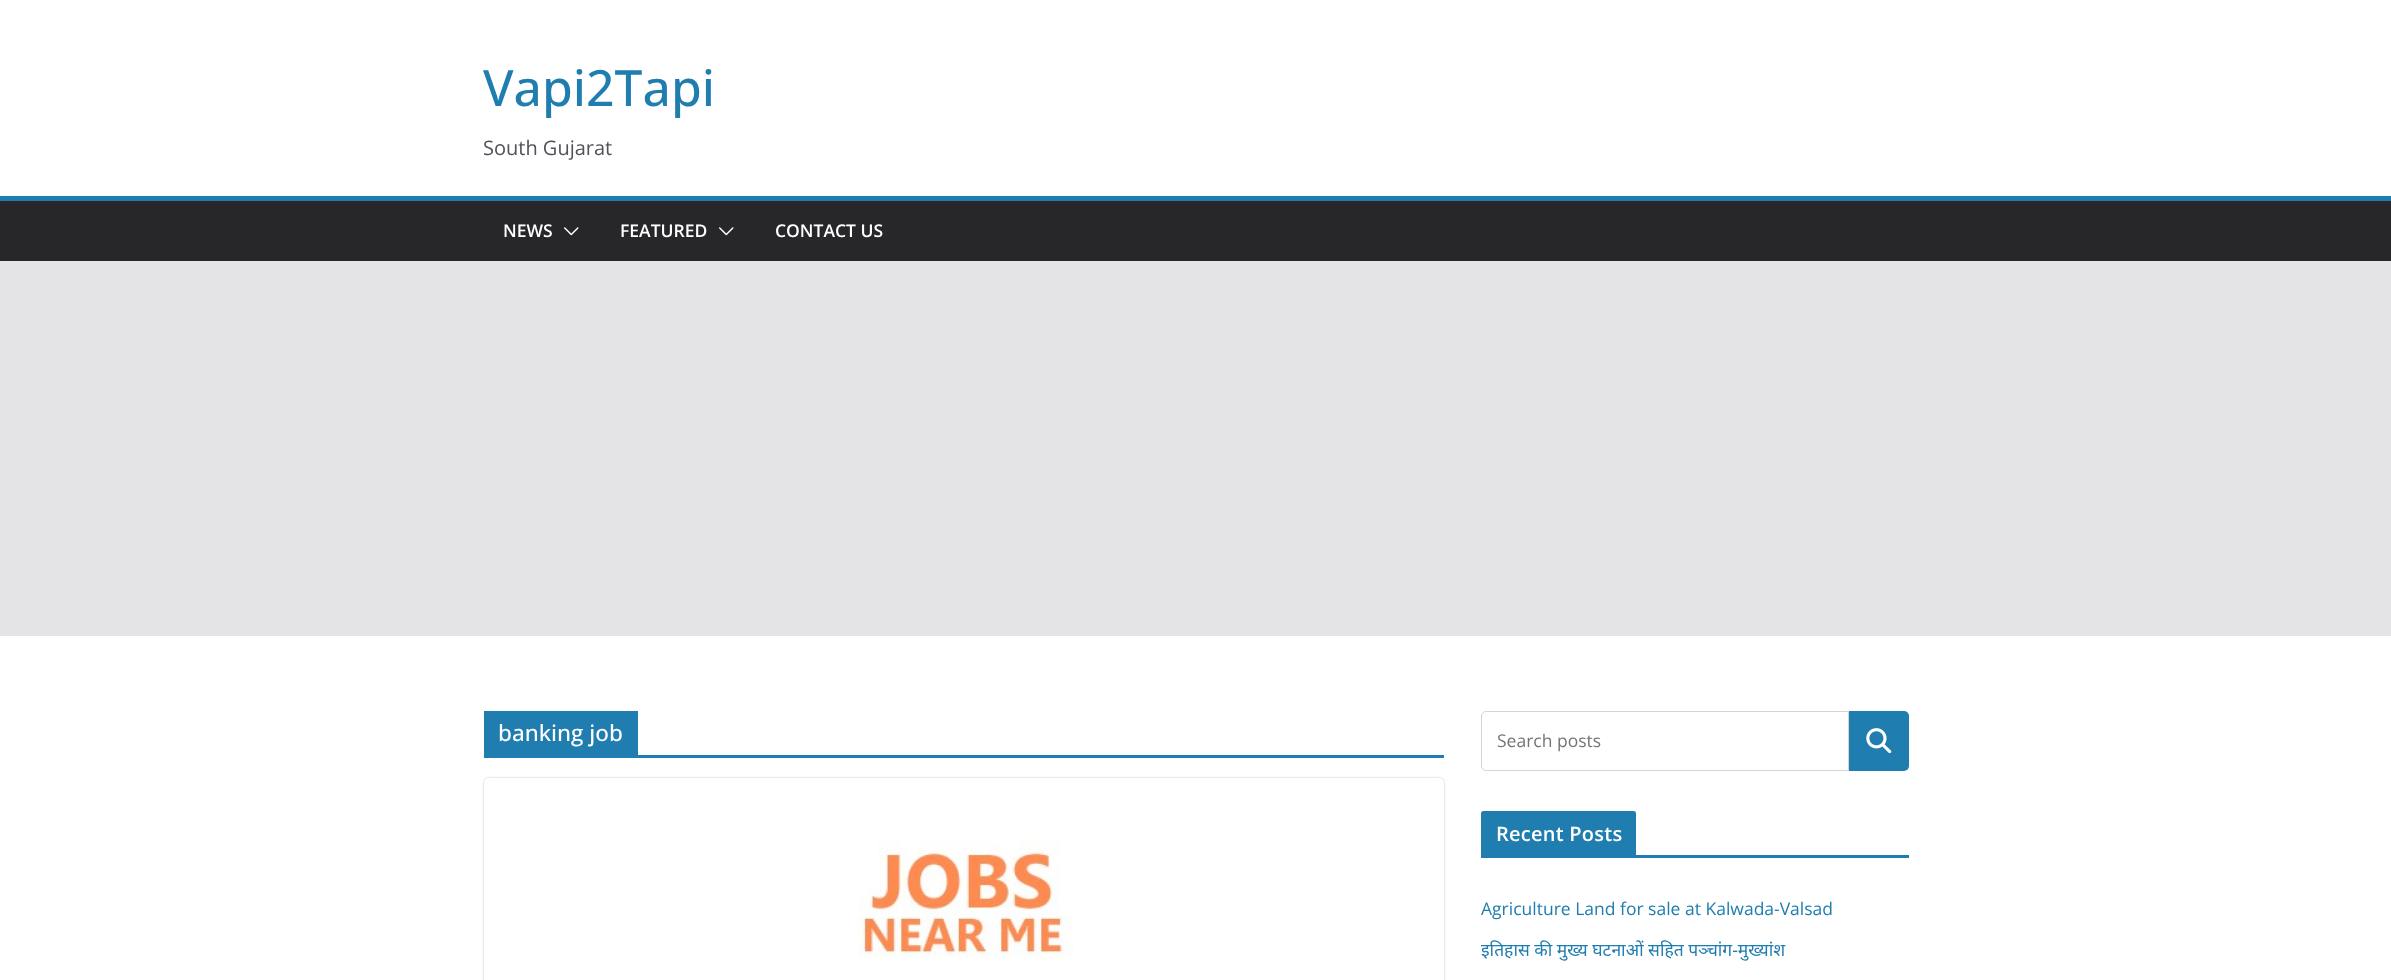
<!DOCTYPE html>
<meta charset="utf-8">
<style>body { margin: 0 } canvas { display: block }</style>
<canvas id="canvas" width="2391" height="980"></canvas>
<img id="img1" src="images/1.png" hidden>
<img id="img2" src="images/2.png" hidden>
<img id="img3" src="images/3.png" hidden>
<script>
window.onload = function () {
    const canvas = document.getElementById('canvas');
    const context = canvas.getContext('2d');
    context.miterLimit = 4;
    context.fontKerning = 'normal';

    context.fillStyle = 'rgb(228, 228, 231)';
    context.fillRect(0, 0, 2391, 980);
    context.fillStyle = 'rgb(255, 255, 255)';
    context.fillRect(0, 0, 2391, 196);
    context.fillStyle = 'rgb(39, 39, 42)';
    context.fillRect(0, 201, 2391, 60);
    context.fillStyle = 'rgb(32, 125, 175)';
    context.fillRect(0, 196, 2391, 5);
    context.drawImage(document.getElementById('img1'), 564, 227, 15, 9);
    context.drawImage(document.getElementById('img1'), 719, 227, 15, 9);
    context.fillStyle = 'rgb(255, 255, 255)';
    context.fillRect(0, 636, 2391, 344);
    context.fillStyle = 'rgb(32, 125, 175)';
    context.fillRect(484, 755, 960, 3);
    context.fillRect(484, 711, 154, 44);
    context.save();
    context.beginPath();
    context.moveTo(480, 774);
    context.lineTo(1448, 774);
    context.lineTo(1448, 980);
    context.lineTo(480, 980);
    context.closePath();
    context.moveTo(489, 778);
    context.lineTo(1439, 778);
    context.bezierCurveTo(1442, 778, 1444, 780, 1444, 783);
    context.lineTo(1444, 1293);
    context.bezierCurveTo(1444, 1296, 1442, 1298, 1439, 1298);
    context.lineTo(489, 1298);
    context.bezierCurveTo(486, 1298, 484, 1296, 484, 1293);
    context.lineTo(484, 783);
    context.bezierCurveTo(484, 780, 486, 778, 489, 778);
    context.closePath();
    context.clip('evenodd');
    context.fillStyle = 'rgba(0, 0, 0, 0.24)';
    context.filter = 'blur(1px)';
    context.beginPath();
    context.roundRect(484, 778, 960, 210, 5);
    context.fill();
    context.filter = 'none';
    context.restore();
    context.drawImage(document.getElementById('img2'), 858, 840, 216, 118);
    context.beginPath();
    context.roundRect(1481.5, 711.5, 367, 59, [4.5, 0, 0, 4.5]);
    context.strokeStyle = 'rgb(212, 212, 216)';
    context.stroke();
    context.beginPath();
    context.roundRect(1849, 711, 60, 60, [0, 5, 5, 0]);
    context.fill();
    context.drawImage(document.getElementById('img3'), 1866, 728, 26, 26);
    context.fillRect(1481, 855, 428, 3);
    context.beginPath();
    context.roundRect(1481, 811, 155, 44, [2.5, 2.5, 0, 0]);
    context.fill();
    context.font = '500 50px Open Sans';
    context.fillText('Vapi2Tapi', 483, 106);
    context.font = '20px Open Sans';
    context.fillStyle = 'rgb(82, 82, 91)';
    context.fillText('South Gujarat', 483, 155);
    context.font = '600 17.5px Open Sans';
    context.fillStyle = 'rgb(255, 255, 255)';
    context.fillText('NEWS', 503, 237);
    context.fillText('FEATURED', 620, 237);
    context.fillText('CONTACT US', 775, 237);
    context.font = '500 22.5px Open Sans';
    context.fillText('banking job', 498, 741);
    context.font = '17.5px Open Sans';
    context.fillStyle = 'rgb(117, 117, 117)';
    context.fillText('Search posts', 1497, 747);
    context.letterSpacing = '0.25px';
    context.font = '600 20px Open Sans';
    context.fillStyle = 'rgb(255, 255, 255)';
    context.fillText('Recent Posts', 1496, 841);
    context.letterSpacing = '0px';
    context.font = '17.5px Open Sans';
    context.fillStyle = 'rgb(32, 125, 175)';
    context.fillText('Agriculture Land for sale at Kalwada-Valsad', 1481, 915);
    context.font = '17.5px Noto Sans';
    context.fillText('इतिहास की मुख्य घटनाओं सहित पञ्चांग-मुख्यांश', 1481, 956);
};
</script>
